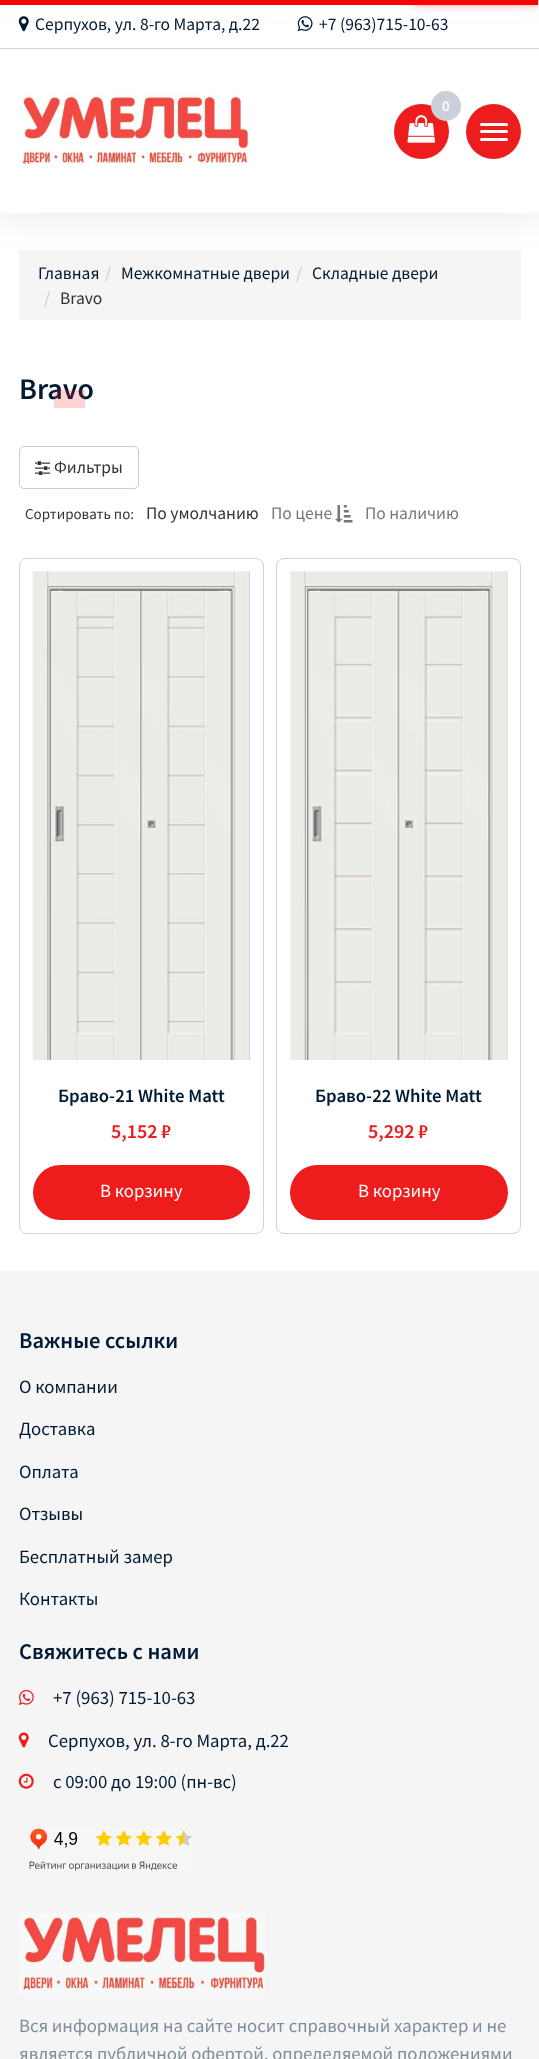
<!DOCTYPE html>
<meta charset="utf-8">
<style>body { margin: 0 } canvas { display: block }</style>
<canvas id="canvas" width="539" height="2059"></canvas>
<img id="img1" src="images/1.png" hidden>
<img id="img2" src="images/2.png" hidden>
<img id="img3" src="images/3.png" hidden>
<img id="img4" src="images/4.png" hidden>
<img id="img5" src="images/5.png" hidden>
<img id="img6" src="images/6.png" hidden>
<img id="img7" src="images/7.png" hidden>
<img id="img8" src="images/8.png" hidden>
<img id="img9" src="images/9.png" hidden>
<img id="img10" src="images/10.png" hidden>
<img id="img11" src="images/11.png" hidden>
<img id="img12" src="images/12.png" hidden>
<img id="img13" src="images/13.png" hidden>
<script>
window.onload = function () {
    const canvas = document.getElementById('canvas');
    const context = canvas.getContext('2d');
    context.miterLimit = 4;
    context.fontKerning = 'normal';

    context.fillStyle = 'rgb(255, 255, 255)';
    context.fillRect(0, 0, 539, 2059);
    context.save();
    context.beginPath();
    context.moveTo(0, 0);
    context.lineTo(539, 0);
    context.lineTo(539, 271);
    context.lineTo(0, 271);
    context.closePath();
    context.moveTo(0, 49);
    context.lineTo(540, 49);
    context.lineTo(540, 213);
    context.lineTo(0, 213);
    context.closePath();
    context.clip('evenodd');
    context.fillStyle = 'rgba(0, 0, 0, 0.1)';
    context.filter = 'blur(19px)';
    context.beginPath();
    context.rect(0, 49, 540, 164);
    context.fill();
    context.filter = 'none';
    context.restore();
    context.fillStyle = 'rgb(255, 0, 0)';
    context.fillRect(0, 0, 538, 5);
    context.save();
    context.beginPath();
    context.moveTo(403, 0);
    context.lineTo(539, 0);
    context.lineTo(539, 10);
    context.lineTo(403, 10);
    context.closePath();
    context.moveTo(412.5, -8.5);
    context.lineTo(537.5, -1.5);
    context.lineTo(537, 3.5);
    context.lineTo(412.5, -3.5);
    context.closePath();
    context.clip('evenodd');
    context.filter = 'blur(3px)';
    context.beginPath();
    context.rect(413, -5, 125, 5);
    context.fill();
    context.filter = 'none';
    context.restore();
    context.save();
    context.beginPath();
    context.moveTo(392, 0);
    context.lineTo(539, 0);
    context.lineTo(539, 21);
    context.lineTo(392, 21);
    context.closePath();
    context.moveTo(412.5, -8.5);
    context.lineTo(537.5, -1.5);
    context.lineTo(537, 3.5);
    context.lineTo(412.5, -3.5);
    context.closePath();
    context.clip('evenodd');
    context.filter = 'blur(6.5px)';
    context.beginPath();
    context.rect(413, -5, 125, 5);
    context.fill();
    context.filter = 'none';
    context.restore();
    context.fillStyle = 'rgb(255, 255, 255)';
    context.fillRect(0, 25, 539, 23);
    context.fillStyle = 'rgb(207, 211, 218)';
    context.fillRect(0, 48, 539, 1);
    context.drawImage(document.getElementById('img1'), 18, 16, 11, 16);
    context.drawImage(document.getElementById('img2'), 297, 16, 16, 16);
    context.drawImage(document.getElementById('img3'), 19, 93, 230, 74);
    context.fillStyle = 'rgb(238, 29, 29)';
    context.beginPath();
    context.arc(421.5, 131.5, 27.5, 0, 2 * Math.PI);
    context.fill();
    context.drawImage(document.getElementById('img4'), 407, 115, 28, 28);
    context.fillStyle = 'rgb(202, 207, 216)';
    context.beginPath();
    context.arc(446, 106, 15, 0, 2 * Math.PI);
    context.fill();
    context.fillStyle = 'rgb(238, 29, 29)';
    context.beginPath();
    context.arc(493.5, 131.5, 27.5, 0, 2 * Math.PI);
    context.fill();
    context.fillStyle = 'rgb(255, 255, 255)';
    context.beginPath();
    context.roundRect(480, 123, 28, 3, 1.5);
    context.fill();
    context.beginPath();
    context.roundRect(480, 130, 28, 3, 1.5);
    context.fill();
    context.beginPath();
    context.roundRect(480, 138, 28, 3, 1.5);
    context.fill();
    context.fillStyle = 'rgb(245, 245, 245)';
    context.fillRect(19, 250, 502, 70);
    context.beginPath();
    context.roundRect(19.5, 446.5, 119, 42, 4.5);
    context.strokeStyle = 'rgb(204, 204, 204)';
    context.stroke();
    context.drawImage(document.getElementById('img5'), 35, 461, 15, 14);
    context.drawImage(document.getElementById('img6'), 335, 505, 18, 18);
    context.beginPath();
    context.roundRect(19.5, 558.5, 244, 675, 7.5);
    context.strokeStyle = 'rgb(207, 211, 218)';
    context.stroke();
    context.drawImage(document.getElementById('img7'), 32, 571, 218, 489);
    context.fillStyle = 'rgb(238, 29, 29)';
    context.beginPath();
    context.roundRect(33, 1165, 217, 55, 27.5);
    context.fill();
    context.beginPath();
    context.roundRect(276.5, 558.5, 244, 675, 7.5);
    context.stroke();
    context.drawImage(document.getElementById('img8'), 290, 571, 218, 489);
    context.beginPath();
    context.roundRect(290, 1165, 218, 55, 27.5);
    context.fill();
    context.fillStyle = 'rgb(245, 245, 245)';
    context.fillRect(0, 1271, 539, 788);
    context.drawImage(document.getElementById('img9'), 18, 1689, 16, 16);
    context.drawImage(document.getElementById('img10'), 18, 1732, 11, 16);
    context.drawImage(document.getElementById('img11'), 18, 1773, 16, 16);
    context.drawImage(document.getElementById('img12'), 29, 1828, 163, 43);
    context.drawImage(document.getElementById('img13'), 19, 1913, 246, 81);
    context.font = '17.5px Source Sans Pro';
    context.fillStyle = 'rgb(0, 26, 52)';
    context.fillText('Серпухов, ул. 8-го Марта, д.22', 35, 30);
    context.fillText('+7 (963)715-10-63', 319, 30);
    context.font = '600 15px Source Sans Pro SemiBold';
    context.fillStyle = 'rgb(255, 255, 255)';
    context.fillText('0', 442, 111);
    context.font = '17.5px Source Sans Pro';
    context.fillStyle = 'rgb(0, 26, 52)';
    context.fillText('Главная', 38, 279);
    context.fillStyle = 'rgb(204, 204, 204)';
    context.fillText('/', 105, 279);
    context.fillStyle = 'rgb(0, 26, 52)';
    context.fillText('Межкомнатные двери', 121, 279);
    context.fillStyle = 'rgb(204, 204, 204)';
    context.fillText('/', 296, 279);
    context.fillStyle = 'rgb(0, 26, 52)';
    context.fillText('Складные двери', 312, 279);
    context.fillStyle = 'rgb(204, 204, 204)';
    context.fillText('/', 44, 304);
    context.fillStyle = 'rgb(51, 51, 51)';
    context.fillText('Bravo', 60, 304);
    context.font = '600 30px Source Sans Pro SemiBold';
    context.fillStyle = 'rgb(0, 26, 52)';
    context.fillText('Bravo', 19, 399);
    context.fillStyle = 'rgba(238, 29, 29, 0.2)';
    context.fillRect(54, 390, 31, 18);
    context.font = '17.5px Source Sans Pro';
    context.fillStyle = 'rgb(51, 51, 51)';
    context.fillText('Фильтры', 54, 473);
    context.font = '15px Source Sans Pro';
    context.fillText('Сортировать по:', 25, 519);
    context.font = '17.5px Source Sans Pro';
    context.fillText('По умолчанию', 146, 519);
    context.fillStyle = 'rgb(119, 119, 119)';
    context.fillText('По цене', 271, 519);
    context.fillText('По наличию', 365, 519);
    context.font = '600 18.75px Source Sans Pro SemiBold';
    context.fillStyle = 'rgb(0, 26, 52)';
    context.fillText('Браво-21 White Matt', 58, 1102);
    context.font = '600 20px Source Sans Pro SemiBold';
    context.fillStyle = 'rgb(238, 29, 29)';
    context.fillText('5,152 ₽', 111, 1138);
    context.font = '18.75px Source Sans Pro';
    context.fillStyle = 'rgb(255, 255, 255)';
    context.fillText('В корзину', 100, 1197);
    context.font = '600 18.75px Source Sans Pro SemiBold';
    context.fillStyle = 'rgb(0, 26, 52)';
    context.fillText('Браво-22 White Matt', 315, 1102);
    context.font = '600 20px Source Sans Pro SemiBold';
    context.fillStyle = 'rgb(238, 29, 29)';
    context.fillText('5,292 ₽', 368, 1138);
    context.font = '18.75px Source Sans Pro';
    context.fillStyle = 'rgb(255, 255, 255)';
    context.fillText('В корзину', 358, 1197);
    context.font = '600 22.5px Source Sans Pro SemiBold';
    context.fillStyle = 'rgb(0, 26, 52)';
    context.fillText('Важные ссылки', 19, 1348);
    context.font = '18.75px Source Sans Pro';
    context.fillText('О компании', 19, 1393);
    context.fillText('Доставка', 19, 1435);
    context.fillText('Оплата', 19, 1478);
    context.fillText('Отзывы', 19, 1520);
    context.fillText('Бесплатный замер', 19, 1563);
    context.fillText('Контакты', 19, 1605);
    context.font = '600 22.5px Source Sans Pro SemiBold';
    context.fillText('Свяжитесь с нами', 19, 1659);
    context.font = '18.75px Source Sans Pro';
    context.fillText('+7 (963) 715-10-63', 53, 1704);
    context.fillText('Серпухов, ул. 8-го Марта, д.22', 48, 1747);
    context.fillText('с 09:00 до 19:00 (пн-вс)', 53, 1788);
    context.fillStyle = 'rgb(128, 141, 154)';
    context.fillText('Вся информация на сайте носит справочный характер и не', 19, 2032);
    context.fillText('является публичной офертой, определяемой положениями', 19, 2060);
};
</script>
